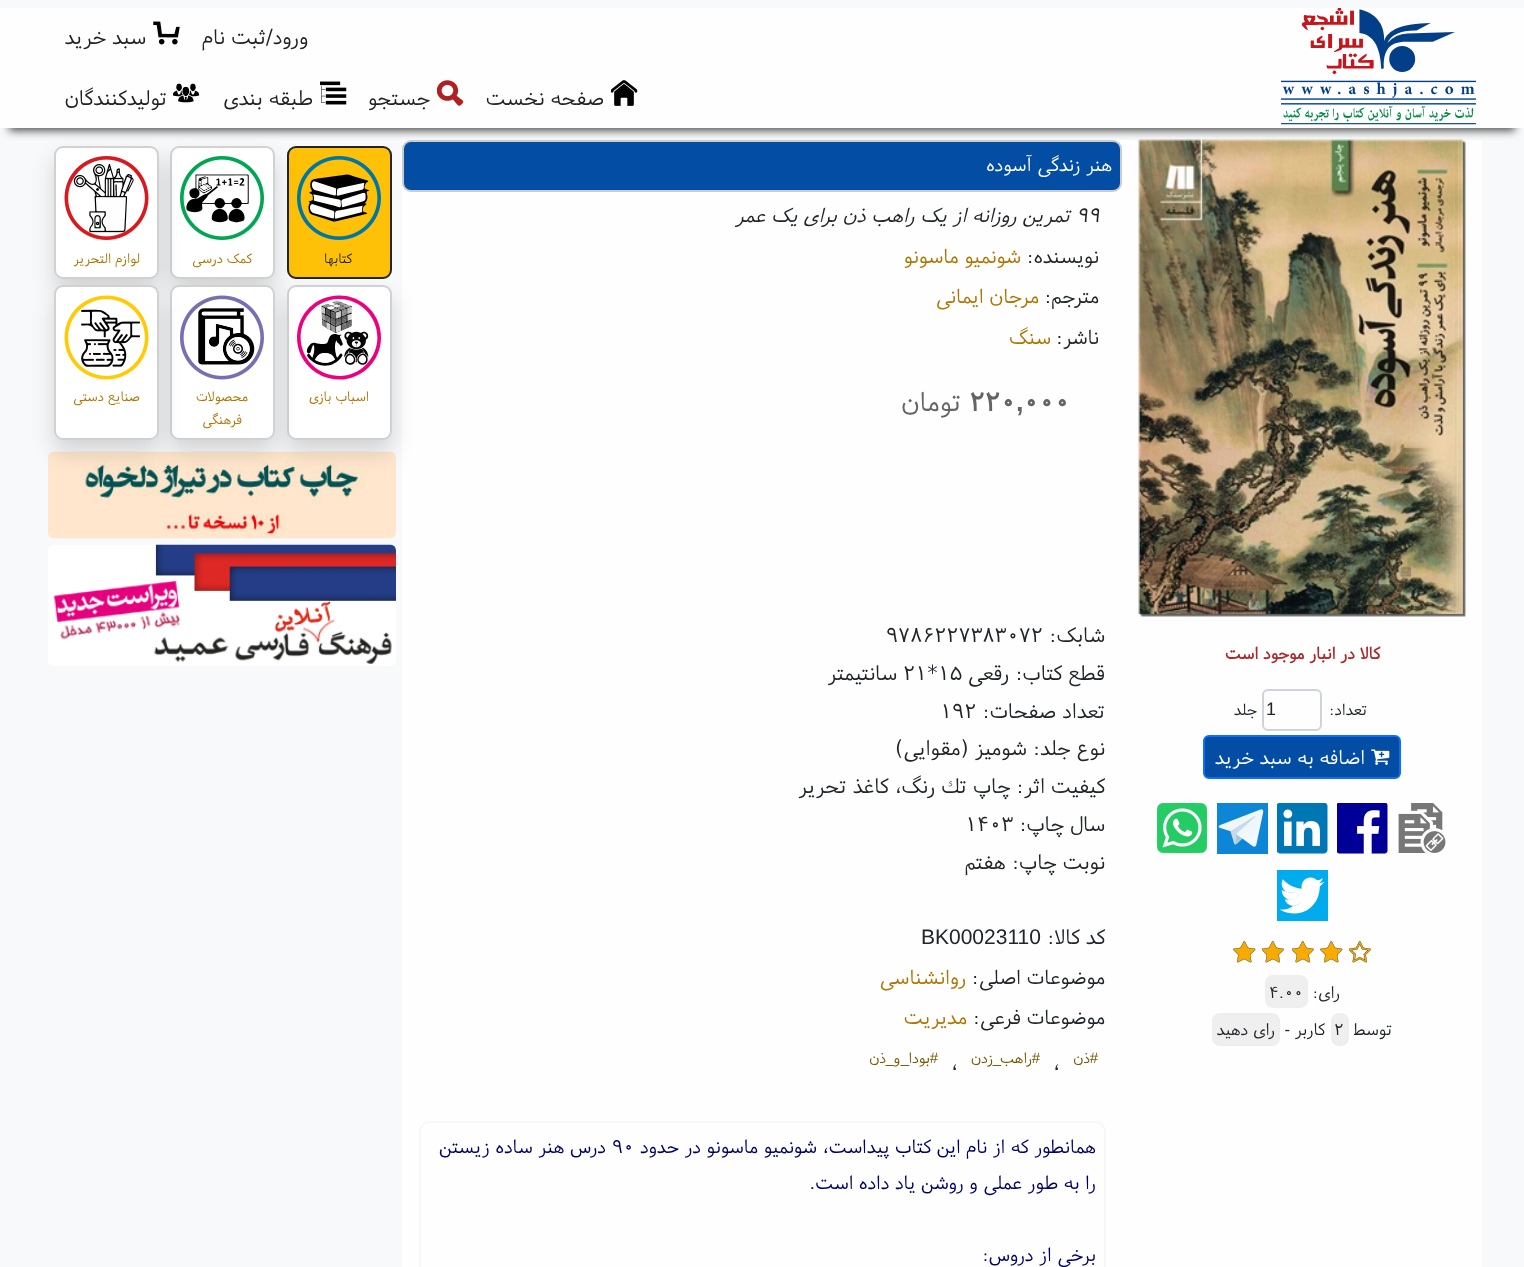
<!DOCTYPE html>
<meta charset="utf-8">
<style>body { margin: 0 } canvas { display: block }</style>
<canvas id="canvas" width="1524" height="1267"></canvas>
<img id="img1" src="images/1.png" hidden>
<img id="img2" src="images/2.png" hidden>
<img id="img3" src="images/3.png" hidden>
<img id="img4" src="images/4.png" hidden>
<img id="img5" src="images/5.png" hidden>
<img id="img6" src="images/6.png" hidden>
<img id="img7" src="images/7.png" hidden>
<img id="img8" src="images/8.png" hidden>
<img id="img9" src="images/9.png" hidden>
<img id="img10" src="images/10.png" hidden>
<img id="img11" src="images/11.png" hidden>
<img id="img12" src="images/12.png" hidden>
<img id="img13" src="images/13.png" hidden>
<img id="img14" src="images/14.png" hidden>
<img id="img15" src="images/15.png" hidden>
<img id="img16" src="images/16.png" hidden>
<img id="img17" src="images/17.png" hidden>
<img id="img18" src="images/18.png" hidden>
<img id="img19" src="images/19.png" hidden>
<img id="img20" src="images/20.png" hidden>
<img id="img21" src="images/24.png" hidden>
<img id="img22" src="images/21.png" hidden>
<img id="img23" src="images/22.png" hidden>
<img id="img24" src="images/23.png" hidden>
<img id="img25" src="images/25.png" hidden>
<script>
window.onload = function () {
    const canvas = document.getElementById('canvas');
    const context = canvas.getContext('2d');
    context.miterLimit = 4;
    context.fontKerning = 'normal';

    context.fillStyle = 'rgb(248, 249, 250)';
    context.fillRect(0, 0, 1524, 1267);
    context.fillStyle = 'rgb(85, 85, 85)';
    context.filter = 'blur(4.5px)';
    context.beginPath();
    context.rect(9, 29, 1506, 102);
    context.fill();
    context.filter = 'none';
    context.fillStyle = 'rgb(254, 254, 254)';
    context.fillRect(0, 8, 1524, 120);
    context.drawImage(document.getElementById('img1'), 1281, 8, 195, 117);
    context.drawImage(document.getElementById('img2'), 153, 21, 27, 24);
    context.drawImage(document.getElementById('img3'), 611, 80, 27, 26);
    context.drawImage(document.getElementById('img4'), 437, 80, 27, 26);
    context.drawImage(document.getElementById('img5'), 320, 81, 27, 24);
    context.drawImage(document.getElementById('img6'), 173, 83, 27, 20);
    context.fillRect(402, 140, 1080, 1127);
    context.drawImage(document.getElementById('img7'), 1138, 139, 328, 478);
    context.fillStyle = 'rgb(3, 77, 164)';
    context.beginPath();
    context.roundRect(403, 141, 718, 50, 8);
    context.fill();
    context.strokeStyle = 'rgb(204, 204, 204)';
    context.lineWidth = 2;
    context.stroke();
    context.beginPath();
    context.roundRect(1263, 690, 58, 40, 5);
    context.strokeStyle = 'rgb(206, 212, 218)';
    context.stroke();
    context.beginPath();
    context.roundRect(1204, 736, 196, 42, 5);
    context.fill();
    context.strokeStyle = 'rgb(13, 110, 253)';
    context.stroke();
    context.drawImage(document.getElementById('img8'), 1371, 749, 19, 16);
    context.drawImage(document.getElementById('img9'), 1398, 803, 48, 50);
    context.drawImage(document.getElementById('img10'), 1337, 803, 51, 51);
    context.drawImage(document.getElementById('img11'), 1277, 803, 51, 51);
    context.drawImage(document.getElementById('img12'), 1217, 803, 51, 51);
    context.drawImage(document.getElementById('img13'), 1157, 803, 50, 50);
    context.drawImage(document.getElementById('img14'), 1277, 870, 51, 51);
    context.drawImage(document.getElementById('img15'), 1349, 941, 22, 22);
    context.drawImage(document.getElementById('img16'), 1320, 941, 23, 22);
    context.drawImage(document.getElementById('img17'), 1292, 941, 22, 22);
    context.drawImage(document.getElementById('img17'), 1262, 941, 22, 22);
    context.drawImage(document.getElementById('img16'), 1233, 941, 23, 22);
    context.fillStyle = 'rgb(239, 239, 239)';
    context.beginPath();
    context.roundRect(1266, 976, 41, 31, 7);
    context.fill();
    context.strokeStyle = 'rgb(238, 238, 238)';
    context.stroke();
    context.beginPath();
    context.roundRect(1332, 1014, 16, 31, 7);
    context.fill();
    context.stroke();
    context.beginPath();
    context.roundRect(1213, 1014, 66, 31, 7);
    context.fill();
    context.stroke();
    context.beginPath();
    context.roundRect(420, 1122, 685, 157, 10);
    context.strokeStyle = 'rgb(247, 247, 248)';
    context.stroke();
    context.fillStyle = 'rgb(255, 193, 7)';
    context.beginPath();
    context.roundRect(288, 147, 103, 131, 8);
    context.fill();
    context.strokeStyle = 'rgb(33, 37, 41)';
    context.stroke();
    context.drawImage(document.getElementById('img18'), 297, 156, 84, 84);
    context.fillStyle = 'rgba(0, 0, 0, 0.15)';
    context.filter = 'blur(11px)';
    context.beginPath();
    context.roundRect(170, 158, 105, 133, 9);
    context.fill();
    context.filter = 'none';
    context.fillStyle = 'rgb(255, 255, 255)';
    context.beginPath();
    context.roundRect(170, 146, 105, 133, 9);
    context.fill();
    context.beginPath();
    context.roundRect(171, 147, 103, 131, 8);
    context.strokeStyle = 'rgba(0, 0, 0, 0.18)';
    context.stroke();
    context.drawImage(document.getElementById('img19'), 180, 156, 84, 84);
    context.fillStyle = 'rgba(0, 0, 0, 0.15)';
    context.filter = 'blur(11px)';
    context.beginPath();
    context.roundRect(54, 158, 105, 133, 9);
    context.fill();
    context.filter = 'none';
    context.fillStyle = 'rgb(255, 255, 255)';
    context.beginPath();
    context.roundRect(54, 146, 105, 133, 9);
    context.fill();
    context.beginPath();
    context.roundRect(55, 147, 103, 131, 8);
    context.stroke();
    context.drawImage(document.getElementById('img20'), 64, 156, 85, 84);
    context.drawImage(document.getElementById('img21'), 48, 451, 348, 88);
    context.fillStyle = 'rgba(0, 0, 0, 0.15)';
    context.filter = 'blur(11px)';
    context.beginPath();
    context.roundRect(287, 297, 105, 155, 9);
    context.fill();
    context.filter = 'none';
    context.fillStyle = 'rgb(255, 255, 255)';
    context.beginPath();
    context.roundRect(287, 285, 105, 155, 9);
    context.fill();
    context.beginPath();
    context.roundRect(288, 286, 103, 153, 8);
    context.stroke();
    context.drawImage(document.getElementById('img22'), 296, 295, 85, 85);
    context.fillStyle = 'rgba(0, 0, 0, 0.15)';
    context.filter = 'blur(11px)';
    context.beginPath();
    context.roundRect(170, 297, 105, 155, 9);
    context.fill();
    context.filter = 'none';
    context.fillStyle = 'rgb(255, 255, 255)';
    context.beginPath();
    context.roundRect(170, 285, 105, 155, 9);
    context.fill();
    context.beginPath();
    context.roundRect(171, 286, 103, 153, 8);
    context.stroke();
    context.drawImage(document.getElementById('img23'), 180, 295, 84, 85);
    context.fillStyle = 'rgba(0, 0, 0, 0.15)';
    context.filter = 'blur(11px)';
    context.beginPath();
    context.roundRect(54, 297, 105, 155, 9);
    context.fill();
    context.filter = 'none';
    context.fillStyle = 'rgb(255, 255, 255)';
    context.beginPath();
    context.roundRect(54, 285, 105, 155, 9);
    context.fill();
    context.beginPath();
    context.roundRect(55, 286, 103, 153, 8);
    context.stroke();
    context.drawImage(document.getElementById('img24'), 64, 295, 85, 85);
    context.drawImage(document.getElementById('img25'), 48, 544, 348, 122);
    context.direction = 'rtl';
    context.font = '21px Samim';
    context.fillStyle = 'rgb(34, 34, 34)';
    context.fillText('ورود/ثبت نام', 308, 44);
    context.fillText('سبد خرید', 146, 44);
    context.fillText('صفحه نخست', 604, 105);
    context.fillText('جستجو', 430, 105);
    context.fillText('طبقه بندی', 313, 105);
    context.fillText('تولیدکنندگان', 167, 105);
    context.font = '19px Samim';
    context.fillStyle = 'rgb(255, 255, 255)';
    context.fillText('هنر زندگی آسوده', 1112, 171);
    context.direction = 'ltr';
    context.font = 'italic 20.25px Samim';
    context.fillStyle = 'rgb(33, 37, 41)';
    context.fillText('۹۹', 1076, 222);
    context.direction = 'rtl';
    context.fillText('تمرین روزانه از یک راهب ذن برای یک عمر', 1070, 222);
    context.font = '20.25px Samim';
    context.fillText('نویسنده:', 1099, 263);
    context.fillStyle = 'rgb(176, 117, 0)';
    context.fillText('شونمیو ماسونو', 1021, 263);
    context.fillStyle = 'rgb(33, 37, 41)';
    context.fillText('مترجم:', 1099, 303);
    context.fillStyle = 'rgb(176, 117, 0)';
    context.fillText('مرجان ایمانی', 1039, 303);
    context.fillStyle = 'rgb(33, 37, 41)';
    context.fillText('ناشر:', 1099, 344);
    context.fillStyle = 'rgb(176, 117, 0)';
    context.fillText('سنگ', 1051, 344);
    context.direction = 'ltr';
    context.font = 'bold 27px Samim';
    context.fillStyle = 'rgb(99, 100, 100)';
    context.fillText('۰۰۰', 1023, 411);
    context.fillText('۲۲۰', 969, 411);
    context.direction = 'rtl';
    context.font = '27px Samim';
    context.fillText('تومان', 961, 411);
    context.direction = 'ltr';
    context.font = 'bold 27px Liberation Sans';
    context.fillText(',', 1016, 411);
    context.direction = 'rtl';
    context.font = 'bold 16.75px Samim';
    context.fillStyle = 'rgb(175, 38, 43)';
    context.fillText('کالا در انبار موجود است', 1380, 659);
    context.font = '16px Samim';
    context.fillStyle = 'rgb(33, 37, 41)';
    context.fillText('تعداد:', 1367, 715);
    context.direction = 'ltr';
    context.font = '18px Liberation Sans';
    context.fillText('1', 1266, 715);
    context.direction = 'rtl';
    context.font = '16px Samim';
    context.fillText('جلد', 1257, 715);
    context.font = '19.75px Samim';
    context.fillStyle = 'rgb(255, 255, 255)';
    context.fillText('اضافه به سبد خرید', 1365, 764);
    context.font = '16.75px Samim';
    context.fillStyle = 'rgb(33, 37, 41)';
    context.fillText('رای:', 1340, 998);
    context.direction = 'ltr';
    context.fillText('۴.۰۰', 1269, 998);
    context.direction = 'rtl';
    context.fillText('توسط', 1392, 1035);
    context.direction = 'ltr';
    context.fillText('۲', 1334, 1035);
    context.direction = 'rtl';
    context.fillText('کاربر', 1325, 1035);
    context.font = '16.75px Liberation Sans';
    context.fillText('-', 1290, 1035);
    context.font = '16.75px Samim';
    context.fillText('رای دهید', 1275, 1035);
    context.font = '21px Samim';
    context.fillText('شابک:', 1105, 642);
    context.direction = 'ltr';
    context.fillText('۹۷۸۶۲۲۷۳۸۳۰۷۲', 886, 642);
    context.direction = 'rtl';
    context.fillText('قطع کتاب: رقعی', 1105, 680);
    context.direction = 'ltr';
    context.fillText('۲۱*۱۵', 903, 680);
    context.direction = 'rtl';
    context.fillText('سانتیمتر', 897, 680);
    context.fillText('تعداد صفحات:', 1105, 718);
    context.direction = 'ltr';
    context.fillText('۱۹۲', 940, 718);
    context.direction = 'rtl';
    context.fillText('نوع جلد: شومیز (مقوایی)', 1105, 755);
    context.fillText('کیفیت اثر: چاپ تك رنگ، کاغذ تحریر', 1105, 793);
    context.fillText('سال چاپ:', 1105, 831);
    context.direction = 'ltr';
    context.fillText('۱۴۰۳', 965, 831);
    context.direction = 'rtl';
    context.fillText('نوبت چاپ: هفتم', 1105, 869);
    context.fillText('کد کالا:', 1105, 944);
    context.direction = 'ltr';
    context.font = '21px Liberation Sans';
    context.fillText('BK00023110', 921, 944);
    context.direction = 'rtl';
    context.font = '20.25px Samim';
    context.fillText('موضوعات اصلی:', 1105, 984);
    context.fillStyle = 'rgb(176, 117, 0)';
    context.fillText('روانشناسی', 966, 984);
    context.fillStyle = 'rgb(33, 37, 41)';
    context.fillText('موضوعات فرعی:', 1105, 1024);
    context.fillStyle = 'rgb(176, 117, 0)';
    context.fillText('مدیریت', 967, 1024);
    context.font = '15px Samim';
    context.fillStyle = 'rgb(123, 87, 0)';
    context.fillText('ذن', 1090, 1063);
    context.font = '15px Liberation Sans';
    context.fillText('#', 1098, 1063);
    context.font = '15px Samim';
    context.fillText('راهب', 1032, 1063);
    context.font = '15px Liberation Sans';
    context.fillText('#', 1040, 1063);
    context.fillText('_', 1001, 1063);
    context.font = '15px Samim';
    context.fillText('زدن', 993, 1063);
    context.font = '15px Liberation Sans';
    context.fillText('#', 938, 1063);
    context.font = '15px Samim';
    context.fillText('بودا', 930, 1063);
    context.font = '15px Liberation Sans';
    context.fillText('_', 909, 1063);
    context.font = '15px Samim';
    context.fillText('ذن', 886, 1063);
    context.font = '15px Liberation Sans';
    context.fillText('_', 894, 1063);
    context.font = '15px Samim';
    context.fillText('و', 900, 1063);
    context.direction = 'ltr';
    context.font = '21px Samim';
    context.fillStyle = 'rgb(33, 37, 41)';
    context.fillText('،', 1053, 1070);
    context.fillText('،', 951, 1070);
    context.direction = 'rtl';
    context.font = '19.1px Samim';
    context.fillStyle = 'rgb(0, 0, 102)';
    context.fillText('همانطور که از نام این کتاب پیداست، شونمیو ماسونو در حدود', 1096, 1153);
    context.direction = 'ltr';
    context.fillText('۹۰', 612, 1153);
    context.direction = 'rtl';
    context.fillText('درس هنر ساده زیستن', 606, 1153);
    context.fillText('را به طور عملی و روشن یاد داده است.', 1096, 1189);
    context.fillText('برخی از دروس:', 1096, 1261);
    context.font = '13.5px Samim';
    context.fillStyle = 'rgb(33, 37, 41)';
    context.fillText('کتابها', 352, 263);
    context.fillStyle = 'rgb(176, 117, 0)';
    context.fillText('کمک درسی', 252, 263);
    context.fillText('لوازم التحریر', 140, 263);
    context.fillText('اسباب بازی', 369, 401);
    context.fillText('محصولات', 248, 401);
    context.fillText('فرهنگی', 242, 424);
    context.fillText('صنایع دستی', 140, 401);
};
</script>
